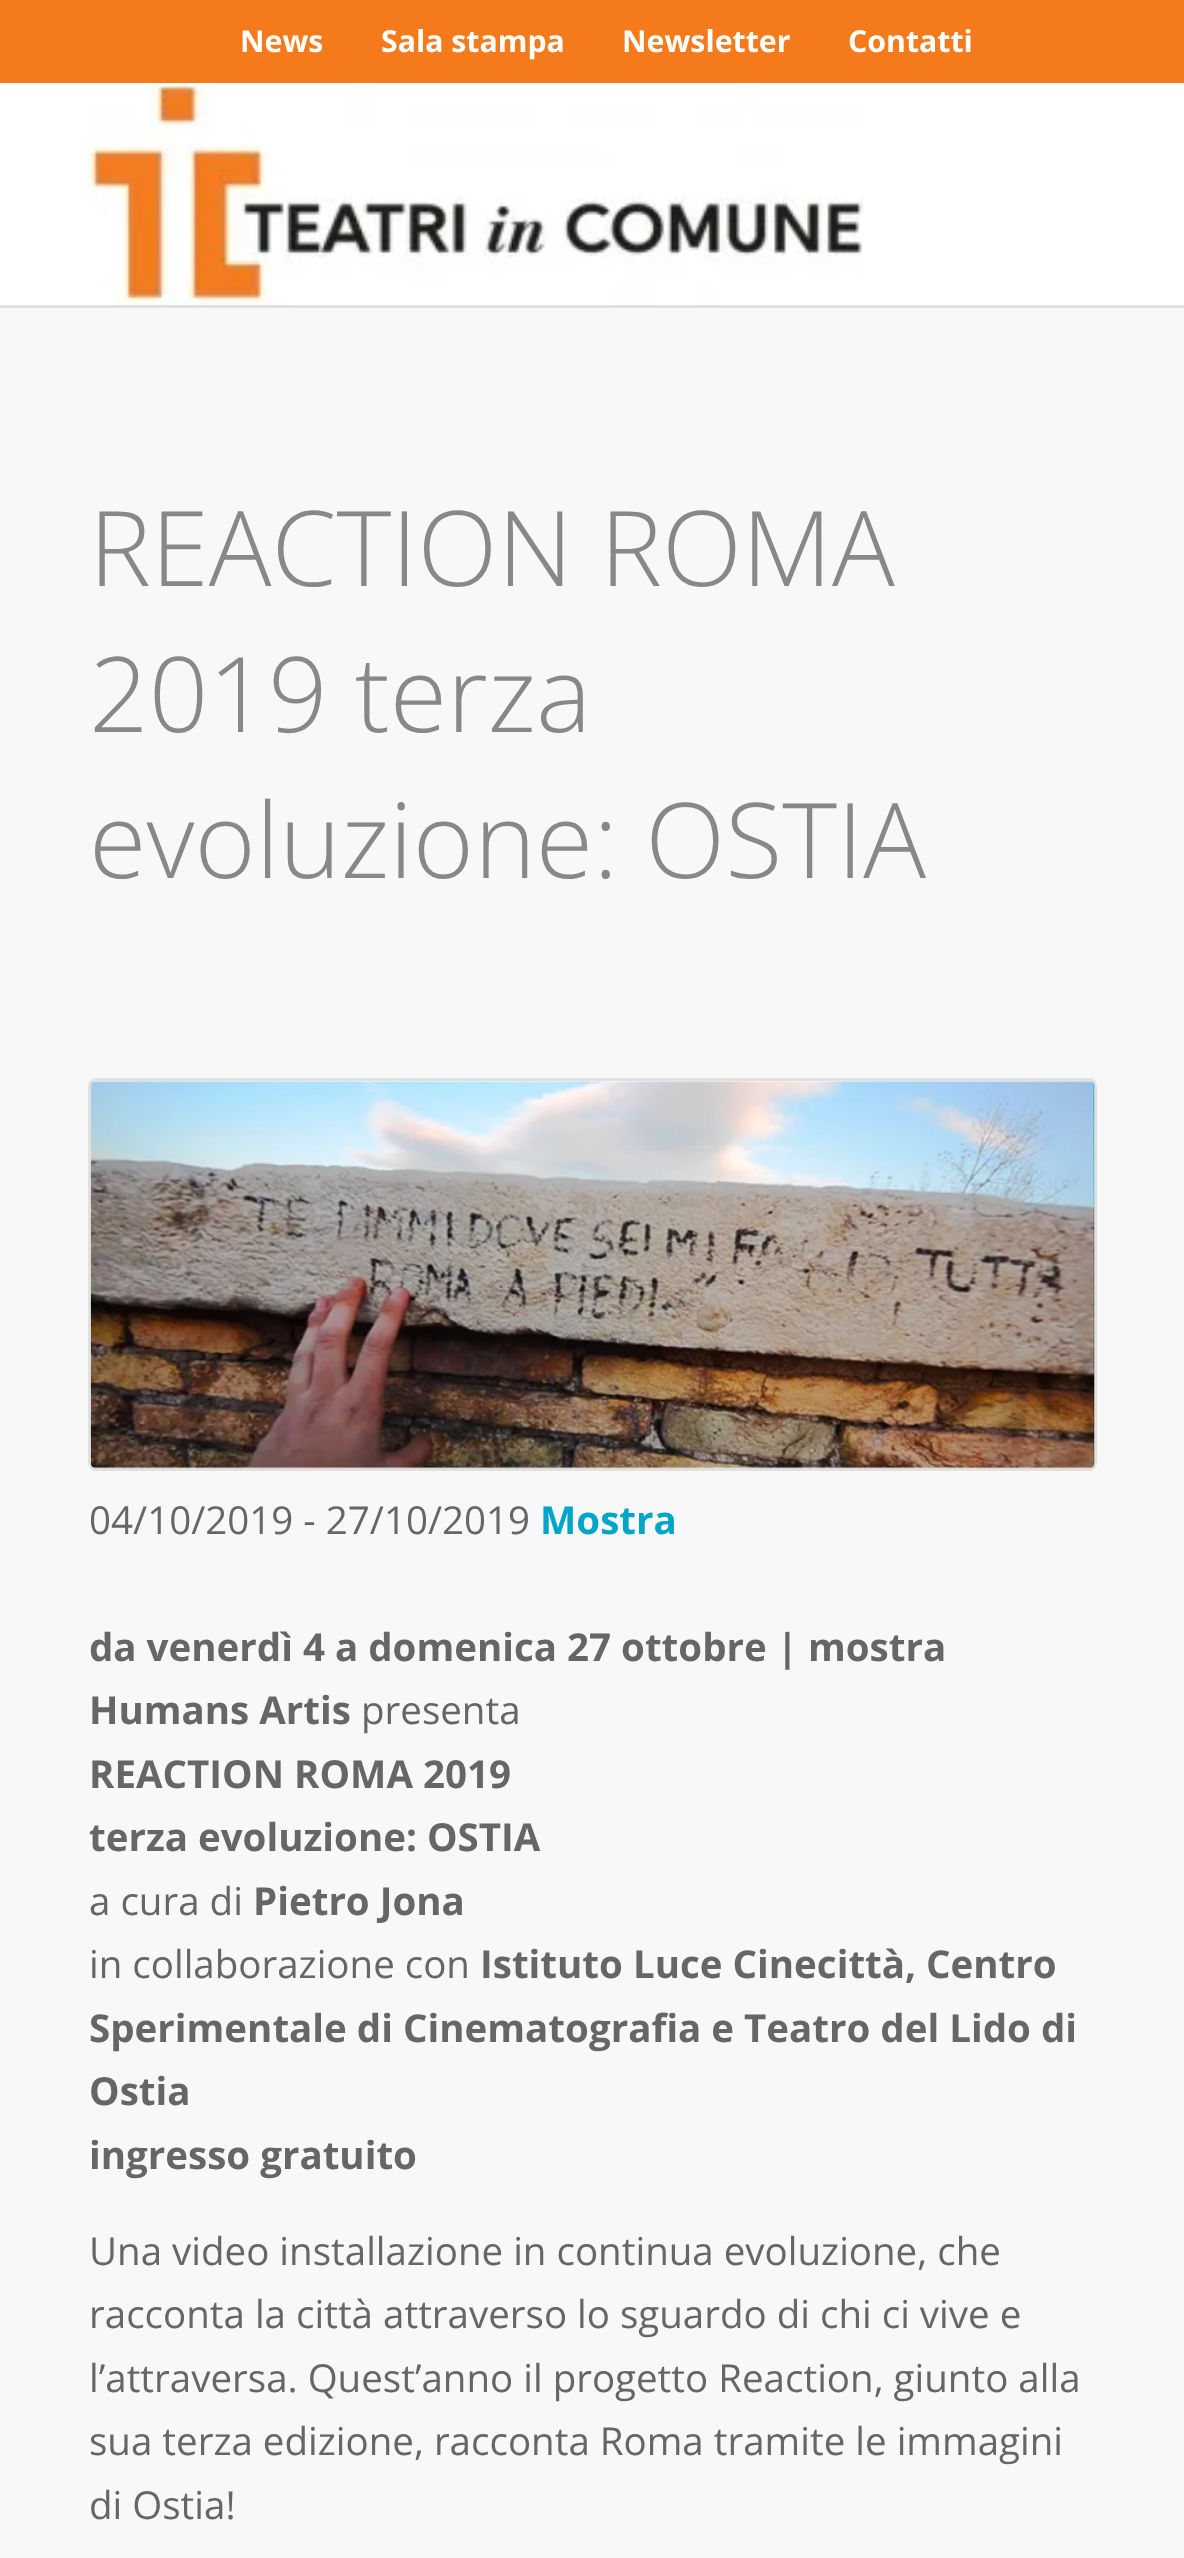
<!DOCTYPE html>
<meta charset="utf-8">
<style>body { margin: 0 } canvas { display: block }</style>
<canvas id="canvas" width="1184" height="2558"></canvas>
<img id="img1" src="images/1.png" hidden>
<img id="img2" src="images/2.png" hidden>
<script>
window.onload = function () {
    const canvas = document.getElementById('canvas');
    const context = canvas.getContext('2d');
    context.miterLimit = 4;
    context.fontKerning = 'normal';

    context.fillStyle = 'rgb(248, 248, 248)';
    context.fillRect(0, 0, 1184, 2558);
    context.fillStyle = 'rgb(245, 122, 28)';
    context.fillRect(0, 0, 1184, 83);
    context.fillStyle = 'rgb(255, 255, 255)';
    context.fillRect(0, 83, 1184, 222);
    context.fillStyle = 'rgb(225, 225, 225)';
    context.fillRect(0, 305, 1184, 3);
    context.drawImage(document.getElementById('img1'), 88, 86, 776, 219);
    context.beginPath();
    context.roundRect(89.5, 1079.5, 1006, 390, 6.5);
    context.strokeStyle = 'rgb(225, 225, 225)';
    context.lineWidth = 3;
    context.stroke();
    context.drawImage(document.getElementById('img2'), 90, 1081, 1005, 388);
    context.font = 'bold 30.25px Open Sans';
    context.fillStyle = 'rgb(255, 255, 255)';
    context.fillText('News', 240, 52);
    context.fillText('Sala stampa', 381, 52);
    context.fillText('Newsletter', 622, 52);
    context.fillText('Contatti', 848, 52);
    context.font = '300 104.5px Open Sans';
    context.fillStyle = 'rgb(136, 136, 136)';
    context.fillText('REACTION ROMA', 89, 586);
    context.fillText('2019 terza', 89, 732);
    context.fillText('evoluzione: OSTIA', 89, 878);
    context.font = '38.5px Open Sans';
    context.fillStyle = 'rgb(102, 102, 102)';
    context.fillText('04/10/2019 - 27/10/2019', 89, 1534);
    context.font = 'bold 38.5px Open Sans';
    context.fillStyle = 'rgb(0, 165, 200)';
    context.fillText('Mostra', 540, 1534);
    context.fillStyle = 'rgb(102, 102, 102)';
    context.fillText('da venerdì 4 a domenica 27 ottobre | mostra', 89, 1661);
    context.fillText('Humans Artis', 89, 1724);
    context.font = '38.5px Open Sans';
    context.fillText('presenta', 361, 1724);
    context.font = 'bold 38.5px Open Sans';
    context.fillText('REACTION ROMA 2019', 89, 1788);
    context.fillText('terza evoluzione: OSTIA', 89, 1851);
    context.font = '38.5px Open Sans';
    context.fillText('a cura di', 89, 1915);
    context.font = 'bold 38.5px Open Sans';
    context.fillText('Pietro Jona', 253, 1915);
    context.font = '38.5px Open Sans';
    context.fillText('in collaborazione con', 89, 1978);
    context.font = 'bold 38.5px Open Sans';
    context.fillText('Istituto Luce Cinecittà, Centro', 480, 1978);
    context.fillText('Sperimentale di Cinematografia e Teatro del Lido di', 89, 2042);
    context.fillText('Ostia', 89, 2105);
    context.fillText('ingresso gratuito', 89, 2169);
    context.font = '38.5px Open Sans';
    context.fillText('Una video installazione in continua evoluzione, che', 89, 2265);
    context.fillText('racconta la città attraverso lo sguardo di chi ci vive e', 89, 2328);
    context.fillText('l’attraversa. Quest’anno il progetto Reaction, giunto alla', 89, 2392);
    context.fillText('sua terza edizione, racconta Roma tramite le immagini', 89, 2455);
    context.fillText('di Ostia!', 89, 2519);
};
</script>
